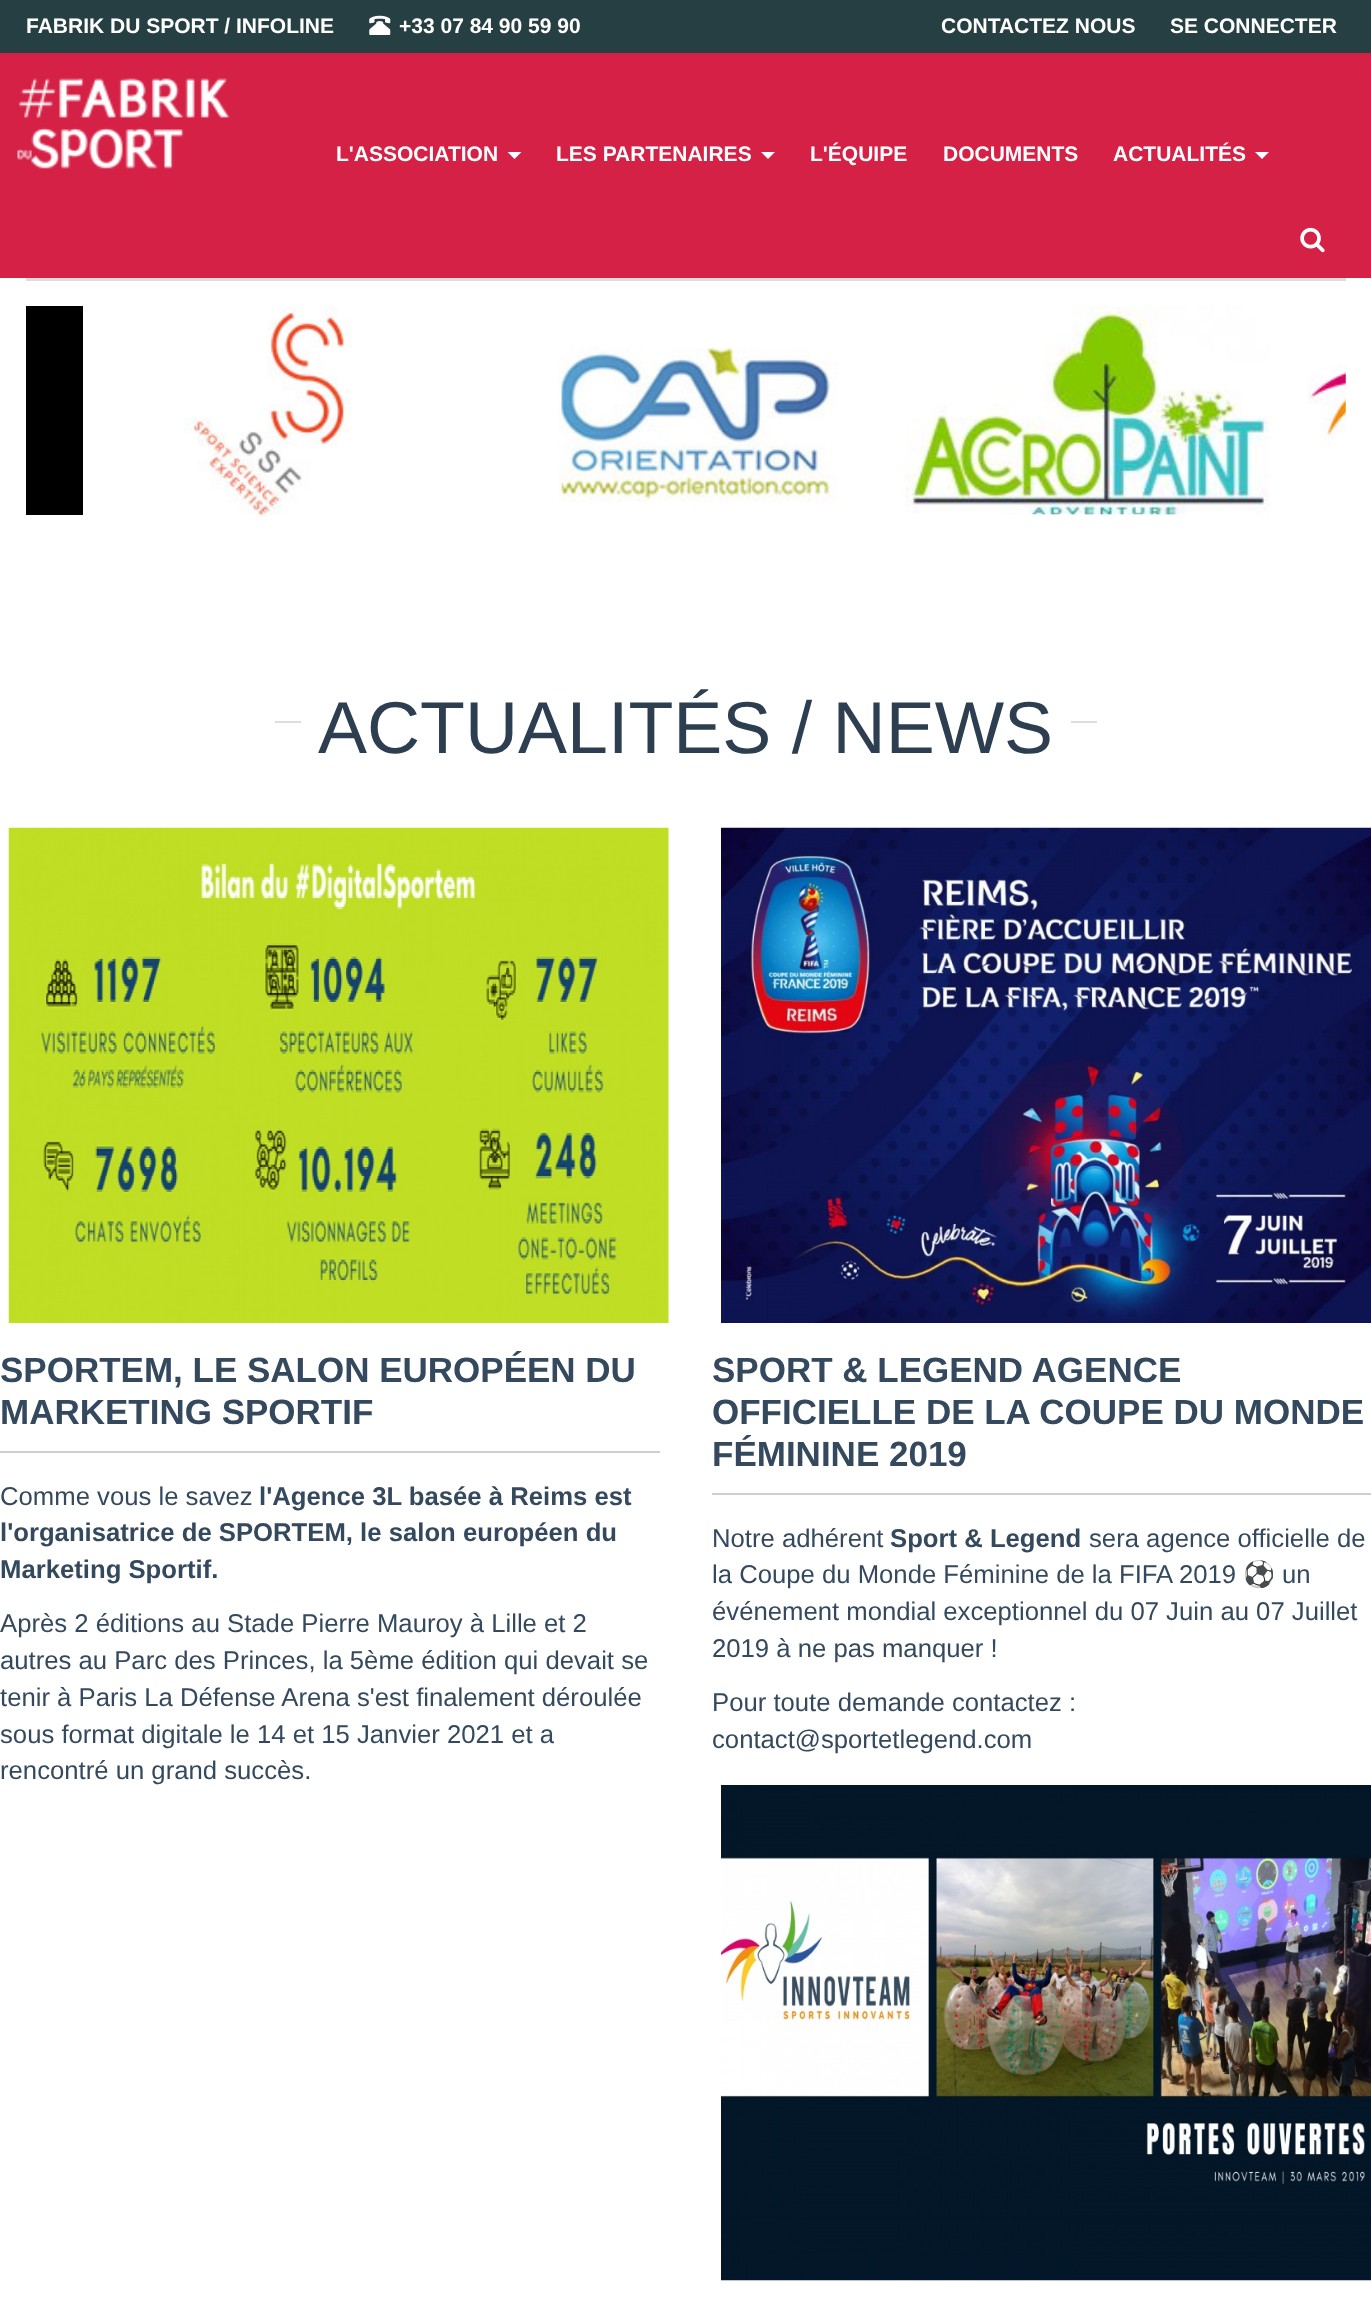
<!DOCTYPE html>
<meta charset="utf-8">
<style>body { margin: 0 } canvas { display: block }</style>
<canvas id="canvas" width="1371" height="2302"></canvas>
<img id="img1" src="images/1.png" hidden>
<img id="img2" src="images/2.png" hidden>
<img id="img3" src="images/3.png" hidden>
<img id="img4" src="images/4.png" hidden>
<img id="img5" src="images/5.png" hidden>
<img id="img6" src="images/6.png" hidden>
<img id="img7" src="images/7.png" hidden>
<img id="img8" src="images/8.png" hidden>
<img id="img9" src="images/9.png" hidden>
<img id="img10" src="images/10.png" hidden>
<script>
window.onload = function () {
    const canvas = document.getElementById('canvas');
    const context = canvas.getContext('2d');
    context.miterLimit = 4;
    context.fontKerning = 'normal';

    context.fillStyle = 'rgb(255, 255, 255)';
    context.fillRect(0, 0, 1371, 2302);
    context.fillStyle = 'rgb(213, 33, 70)';
    context.fillRect(0, 53, 1371, 225);
    context.fillStyle = 'rgb(38, 63, 67)';
    context.fillRect(0, 0, 1371, 53);
    context.drawImage(document.getElementById('img1'), 369, 15, 22, 20);
    context.drawImage(document.getElementById('img2'), 17, 78, 213, 91);
    context.fillStyle = 'rgb(255, 255, 255)';
    context.beginPath();
    context.moveTo(507.5, 152);
    context.lineTo(521.5, 152);
    context.lineTo(514.5, 159);
    context.closePath();
    context.fill();
    context.beginPath();
    context.moveTo(761, 152);
    context.lineTo(775, 152);
    context.lineTo(768, 159);
    context.closePath();
    context.fill();
    context.beginPath();
    context.moveTo(1255, 152);
    context.lineTo(1269, 152);
    context.lineTo(1262, 159);
    context.closePath();
    context.fill();
    context.drawImage(document.getElementById('img3'), 1300, 227, 25, 26);
    context.fillStyle = 'rgb(221, 221, 221)';
    context.fillRect(26, 278, 1320, 3);
    context.fillStyle = 'rgb(0, 0, 0)';
    context.fillRect(26, 306, 57, 209);
    context.drawImage(document.getElementById('img4'), 184, 306, 168, 209);
    context.drawImage(document.getElementById('img5'), 558, 347, 280, 156);
    context.drawImage(document.getElementById('img6'), 904, 306, 366, 209);
    context.drawImage(document.getElementById('img7'), 1307, 364, 39, 82);
    context.fillStyle = 'rgb(221, 221, 221)';
    context.fillRect(275, 721, 822, 2);
    context.fillStyle = 'rgb(255, 255, 255)';
    context.fillRect(301, 721, 770, 2);
    context.drawImage(document.getElementById('img8'), 8, 827, 661, 496);
    context.fillStyle = 'rgb(206, 206, 206)';
    context.fillRect(0, 1451, 660, 2);
    context.drawImage(document.getElementById('img9'), 721, 827, 650, 496);
    context.fillRect(712, 1493, 659, 2);
    context.drawImage(document.getElementById('img10'), 721, 1785, 650, 496);
    context.font = 'bold 21px Liberation Sans';
    context.fillStyle = 'rgb(255, 255, 255)';
    context.fillText('FABRIK DU SPORT / INFOLINE', 26, 33);
    context.fillText('+33 07 84 90 59 90', 399, 33);
    context.fillText('CONTACTEZ NOUS', 941, 33);
    context.fillText('SE CONNECTER', 1170, 33);
    context.fillText('L\'ASSOCIATION', 336, 161);
    context.fillText('LES PARTENAIRES', 556, 161);
    context.fillText('L\'ÉQUIPE', 810, 161);
    context.fillText('DOCUMENTS', 943, 161);
    context.fillText('ACTUALITÉS', 1113, 161);
    context.font = '73.5px Liberation Sans';
    context.fillStyle = 'rgb(44, 62, 80)';
    context.fillText('ACTUALITÉS / NEWS', 318, 753);
    context.font = 'bold 35px Liberation Sans';
    context.fillStyle = 'rgb(52, 73, 94)';
    context.fillText('SPORTEM, LE SALON EUROPÉEN DU', 0, 1382);
    context.fillText('MARKETING SPORTIF', 0, 1424);
    context.font = '25.7px Liberation Sans';
    context.fillText('Comme vous le savez', 0, 1505);
    context.font = 'bold 25.7px Liberation Sans';
    context.fillText('l\'Agence 3L basée à Reims est', 259, 1505);
    context.fillText('l\'organisatrice de SPORTEM, le salon européen du', 0, 1541);
    context.fillText('Marketing Sportif.', 0, 1578);
    context.font = '25.7px Liberation Sans';
    context.fillText('Après 2 éditions au Stade Pierre Mauroy à Lille et 2', 0, 1632);
    context.fillText('autres au Parc des Princes, la 5ème édition qui devait se', 0, 1669);
    context.fillText('tenir à Paris La Défense Arena s\'est finalement déroulée', 0, 1706);
    context.fillText('sous format digitale le 14 et 15 Janvier 2021 et a', 0, 1743);
    context.fillText('rencontré un grand succès.', 0, 1779);
    context.font = 'bold 35px Liberation Sans';
    context.fillText('SPORT & LEGEND AGENCE', 712, 1382);
    context.fillText('OFFICIELLE DE LA COUPE DU MONDE', 712, 1424);
    context.fillText('FÉMININE 2019', 712, 1466);
    context.font = '25.7px Liberation Sans';
    context.fillText('Notre adhérent', 712, 1547);
    context.font = 'bold 25.7px Liberation Sans';
    context.fillText('Sport & Legend', 890, 1547);
    context.font = '25.7px Liberation Sans';
    context.fillText('sera agence officielle de', 1089, 1547);
    context.fillText('la Coupe du Monde Féminine de la FIFA 2019', 712, 1583);
    context.font = '25.7px Noto Color Emoji';
    context.fillText('⚽️', 1243, 1583);
    context.font = '25.7px Liberation Sans';
    context.fillText('un', 1282, 1583);
    context.fillText('événement mondial exceptionnel du 07 Juin au 07 Juillet', 712, 1620);
    context.fillText('2019 à ne pas manquer !', 712, 1657);
    context.fillText('Pour toute demande contactez :', 712, 1711);
    context.fillText('contact@sportetlegend.com', 712, 1748);
};
</script>
